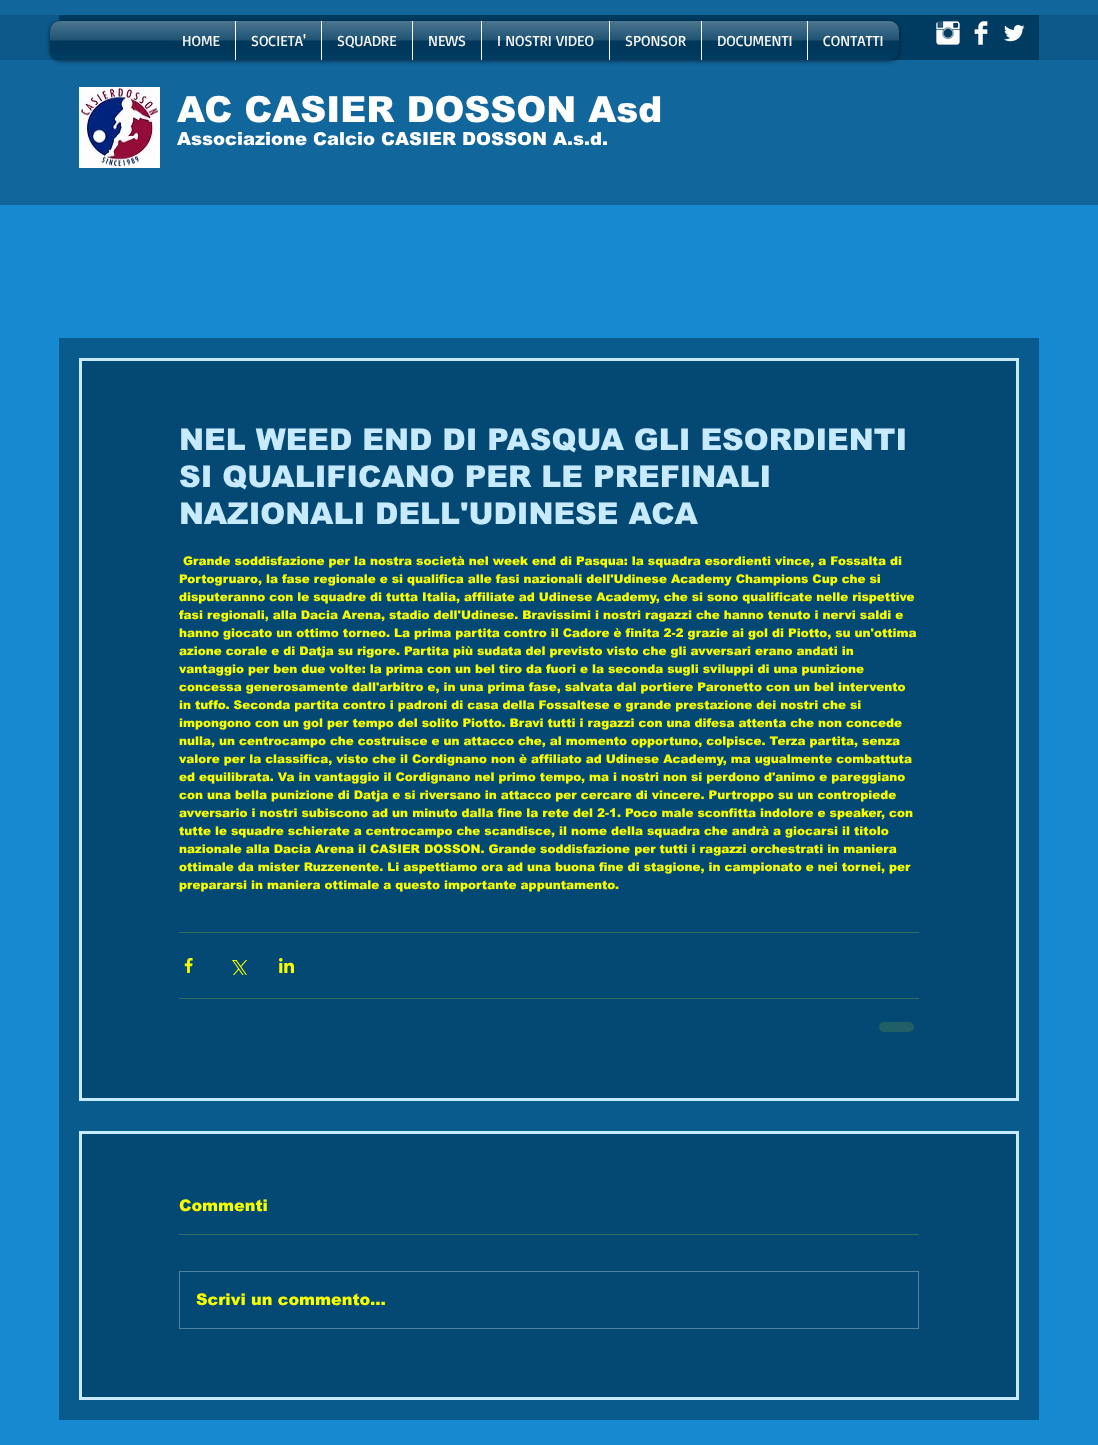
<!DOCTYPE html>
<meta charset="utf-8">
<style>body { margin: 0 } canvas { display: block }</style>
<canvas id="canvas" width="1098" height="1445"></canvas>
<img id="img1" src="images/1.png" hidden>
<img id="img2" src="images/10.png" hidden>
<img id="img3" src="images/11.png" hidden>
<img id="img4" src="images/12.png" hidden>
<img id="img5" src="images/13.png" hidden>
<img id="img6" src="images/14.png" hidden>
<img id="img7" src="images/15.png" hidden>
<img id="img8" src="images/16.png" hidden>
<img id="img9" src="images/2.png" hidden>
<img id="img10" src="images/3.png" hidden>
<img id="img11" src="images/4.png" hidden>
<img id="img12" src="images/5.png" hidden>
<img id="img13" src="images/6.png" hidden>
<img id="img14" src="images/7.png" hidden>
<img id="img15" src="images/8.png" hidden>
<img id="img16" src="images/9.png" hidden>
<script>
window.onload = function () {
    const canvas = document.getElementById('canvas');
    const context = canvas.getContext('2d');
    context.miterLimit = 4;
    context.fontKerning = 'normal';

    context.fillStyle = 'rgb(22, 137, 209)';
    context.fillRect(0, 0, 1098, 1445);
    context.fillStyle = 'rgb(17, 102, 156)';
    context.fillRect(0, 0, 1098, 205);
    context.fillStyle = 'rgb(12, 89, 138)';
    context.fillRect(0, 15, 1098, 45);
    context.fillStyle = 'rgb(0, 60, 98)';
    context.fillRect(59, 15, 980, 45);
    context.fillStyle = 'rgba(0, 0, 0, 0.6)';
    context.filter = 'blur(2px)';
    context.beginPath();
    context.roundRect(50, 22, 849, 39, 10);
    context.fill();
    context.filter = 'none';
    context.fillStyle = 'rgb(0, 60, 98)';
    context.beginPath();
    context.roundRect(50, 21, 849, 39, 10);
    context.fill();
    context.drawImage(document.getElementById('img1'), 50, 21, 849, 33);
    context.fillRect(167, 21, 68, 33);
    context.fillRect(236, 21, 85, 33);
    context.fillStyle = 'rgb(255, 255, 255)';
    context.fillRect(235, 21, 1, 39);
    context.fillStyle = 'rgb(0, 60, 98)';
    context.fillRect(322, 21, 90, 33);
    context.fillStyle = 'rgb(255, 255, 255)';
    context.fillRect(321, 21, 1, 39);
    context.fillStyle = 'rgb(0, 60, 98)';
    context.fillRect(413, 21, 68, 33);
    context.fillStyle = 'rgb(255, 255, 255)';
    context.fillRect(412, 21, 1, 39);
    context.fillStyle = 'rgb(0, 60, 98)';
    context.fillRect(482, 21, 127, 33);
    context.fillStyle = 'rgb(255, 255, 255)';
    context.fillRect(481, 21, 1, 39);
    context.fillStyle = 'rgb(0, 60, 98)';
    context.fillRect(610, 21, 91, 33);
    context.fillStyle = 'rgb(255, 255, 255)';
    context.fillRect(609, 21, 1, 39);
    context.fillStyle = 'rgb(0, 60, 98)';
    context.fillRect(702, 21, 105, 33);
    context.fillStyle = 'rgb(255, 255, 255)';
    context.fillRect(701, 21, 1, 39);
    context.fillStyle = 'rgb(0, 60, 98)';
    context.beginPath();
    context.roundRect(807, 21, 92, 39, [0, 10, 10, 0]);
    context.fill();
    context.fillStyle = 'rgb(255, 255, 255)';
    context.fillRect(807, 21, 1, 39);
    context.drawImage(document.getElementById('img2'), 936, 21, 24, 24);
    context.drawImage(document.getElementById('img3'), 974, 21, 14, 24);
    context.drawImage(document.getElementById('img4'), 1004, 24, 21, 18);
    context.drawImage(document.getElementById('img5'), 79, 87, 81, 81);
    context.fillStyle = 'rgb(9, 91, 142)';
    context.fillRect(59, 338, 980, 1082);
    context.fillStyle = 'rgb(4, 73, 116)';
    context.beginPath();
    context.rect(80.5, 359.5, 937, 740);
    context.fill();
    context.strokeStyle = 'rgb(200, 234, 255)';
    context.lineWidth = 3;
    context.stroke();
    context.fillStyle = 'rgb(52, 109, 93)';
    context.fillRect(179, 932, 740, 1);
    context.drawImage(document.getElementById('img6'), 184, 958, 9, 15);
    context.drawImage(document.getElementById('img7'), 232, 960, 15, 15);
    context.drawImage(document.getElementById('img8'), 279, 958, 15, 15);
    context.fillRect(179, 998, 740, 1);
    context.fillStyle = 'rgb(33, 95, 102)';
    context.beginPath();
    context.roundRect(879, 1022, 35, 10, 5);
    context.fill();
    context.fillStyle = 'rgb(4, 73, 116)';
    context.beginPath();
    context.rect(80.5, 1132.5, 937, 266);
    context.fill();
    context.stroke();
    context.fillStyle = 'rgb(52, 109, 93)';
    context.fillRect(179, 1234, 740, 1);
    context.strokeStyle = 'rgb(79, 128, 158)';
    context.lineWidth = 1;
    context.strokeRect(179.5, 1271.5, 739, 57);
    context.font = '15px Basic';
    context.fillStyle = 'rgb(255, 255, 255)';
    context.fillText('HOME', 182, 46);
    context.drawImage(document.getElementById('img9'), 167, 21, 68, 33);
    context.fillText('SOCIETA\'', 251, 46);
    context.drawImage(document.getElementById('img10'), 236, 21, 85, 33);
    context.fillText('SQUADRE', 337, 46);
    context.drawImage(document.getElementById('img11'), 322, 21, 90, 33);
    context.fillText('NEWS', 428, 46);
    context.drawImage(document.getElementById('img12'), 413, 21, 68, 33);
    context.fillText('I NOSTRI VIDEO', 497, 46);
    context.drawImage(document.getElementById('img13'), 482, 21, 127, 33);
    context.fillText('SPONSOR', 625, 46);
    context.drawImage(document.getElementById('img14'), 610, 21, 91, 33);
    context.fillText('DOCUMENTI', 717, 46);
    context.drawImage(document.getElementById('img15'), 702, 21, 105, 33);
    context.fillText('CONTATTI', 823, 46);
    context.drawImage(document.getElementById('img16'), 808, 21, 91, 33);
    context.font = '900 36px arial';
    context.fillText('AC CASIER DOSSON Asd', 177, 122);
    context.font = '900 18px arial';
    context.fillText('Associazione Calcio CASIER DOSSON A.s.d.', 177, 145);
    context.font = '900 30px arial';
    context.fillStyle = 'rgb(200, 234, 255)';
    context.fillText('NEL WEED END DI PASQUA GLI ESORDIENTI', 179, 450);
    context.fillText('SI QUALIFICANO PER LE PREFINALI', 179, 487);
    context.fillText('NAZIONALI DELL\'UDINESE ACA', 179, 524);
    context.font = '900 12px arial';
    context.fillStyle = 'rgb(246, 255, 0)';
    context.fillText('Grande soddisfazione per la nostra società nel week end di Pasqua: la squadra esordienti vince, a Fossalta di', 183, 565);
    context.fillText('Portogruaro, la fase regionale e si qualifica alle fasi nazionali dell\'Udinese Academy Champions Cup che si', 179, 583);
    context.fillText('disputeranno con le squadre di tutta Italia, affiliate ad Udinese Academy, che si sono qualificate nelle rispettive', 179, 601);
    context.fillText('fasi regionali, alla Dacia Arena, stadio dell\'Udinese. Bravissimi i nostri ragazzi che hanno tenuto i nervi saldi e', 179, 619);
    context.fillText('hanno giocato un ottimo torneo. La prima partita contro il Cadore è finita 2-2 grazie ai gol di Piotto, su un\'ottima', 179, 637);
    context.fillText('azione corale e di Datja su rigore. Partita più sudata del previsto visto che gli avversari erano andati in', 179, 655);
    context.fillText('vantaggio per ben due volte: la prima con un bel tiro da fuori e la seconda sugli sviluppi di una punizione', 179, 673);
    context.fillText('concessa generosamente dall\'arbitro e, in una prima fase, salvata dal portiere Paronetto con un bel intervento', 179, 691);
    context.fillText('in tuffo. Seconda partita contro i padroni di casa della Fossaltese e grande prestazione dei nostri che si', 179, 709);
    context.fillText('impongono con un gol per tempo del solito Piotto. Bravi tutti i ragazzi con una difesa attenta che non concede', 179, 727);
    context.fillText('nulla, un centrocampo che costruisce e un attacco che, al momento opportuno, colpisce. Terza partita, senza', 179, 745);
    context.fillText('valore per la classifica, visto che il Cordignano non è affiliato ad Udinese Academy, ma ugualmente combattuta', 179, 763);
    context.fillText('ed equilibrata. Va in vantaggio il Cordignano nel primo tempo, ma i nostri non si perdono d\'animo e pareggiano', 179, 781);
    context.fillText('con una bella punizione di Datja e si riversano in attacco per cercare di vincere. Purtroppo su un contropiede', 179, 799);
    context.fillText('avversario i nostri subiscono ad un minuto dalla fine la rete del 2-1. Poco male sconfitta indolore e speaker, con', 179, 817);
    context.fillText('tutte le squadre schierate a centrocampo che scandisce, il nome della squadra che andrà a giocarsi il titolo', 179, 835);
    context.fillText('nazionale alla Dacia Arena il CASIER DOSSON. Grande soddisfazione per tutti i ragazzi orchestrati in maniera', 179, 853);
    context.fillText('ottimale da mister Ruzzenente. Li aspettiamo ora ad una buona fine di stagione, in campionato e nei tornei, per', 179, 871);
    context.fillText('prepararsi in maniera ottimale a questo importante appuntamento.', 179, 889);
    context.font = '900 16px arial';
    context.fillText('Commenti', 179, 1211);
    context.fillText('Scrivi un commento...', 196, 1305);
};
</script>
